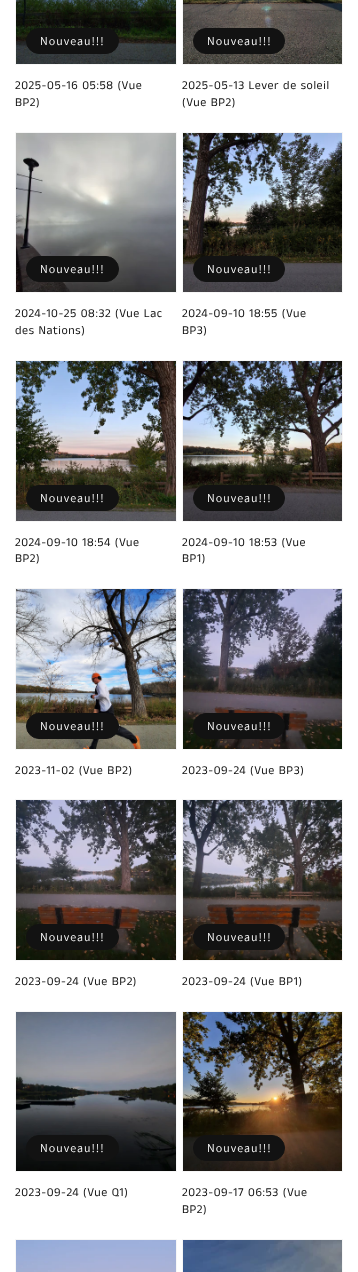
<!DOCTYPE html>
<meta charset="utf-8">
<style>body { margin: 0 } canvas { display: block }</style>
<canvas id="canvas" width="358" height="1272"></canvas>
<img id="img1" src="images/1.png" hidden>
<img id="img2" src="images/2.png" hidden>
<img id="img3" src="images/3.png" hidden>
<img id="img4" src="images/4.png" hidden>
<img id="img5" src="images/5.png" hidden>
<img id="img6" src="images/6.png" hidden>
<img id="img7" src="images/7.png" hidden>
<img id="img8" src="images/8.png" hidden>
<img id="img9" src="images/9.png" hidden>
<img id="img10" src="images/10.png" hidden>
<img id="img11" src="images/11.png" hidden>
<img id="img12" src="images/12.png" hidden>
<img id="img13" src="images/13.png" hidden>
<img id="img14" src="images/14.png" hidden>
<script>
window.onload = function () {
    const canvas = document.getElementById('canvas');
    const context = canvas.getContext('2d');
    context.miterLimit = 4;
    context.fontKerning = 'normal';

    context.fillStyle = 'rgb(255, 255, 255)';
    context.fillRect(0, 0, 358, 1272);
    context.strokeStyle = 'rgb(246, 246, 246)';
    context.strokeRect(15.5, -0.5, 161, 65);
    context.drawImage(document.getElementById('img1'), 16, 0, 160, 64);
    context.fillStyle = 'rgb(18, 18, 18)';
    context.beginPath();
    context.roundRect(26.5, 28.5, 92, 25, 12.5);
    context.fill();
    context.strokeStyle = 'rgb(18, 18, 18)';
    context.stroke();
    context.strokeStyle = 'rgb(246, 246, 246)';
    context.strokeRect(182.5, -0.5, 160, 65);
    context.drawImage(document.getElementById('img2'), 183, 0, 159, 64);
    context.beginPath();
    context.roundRect(193.5, 28.5, 91, 25, 12.5);
    context.fill();
    context.strokeStyle = 'rgb(18, 18, 18)';
    context.stroke();
    context.strokeStyle = 'rgb(246, 246, 246)';
    context.strokeRect(15.5, 132.5, 161, 160);
    context.drawImage(document.getElementById('img3'), 16, 133, 160, 159);
    context.beginPath();
    context.roundRect(26.5, 256.5, 92, 25, 12.5);
    context.fill();
    context.strokeStyle = 'rgb(18, 18, 18)';
    context.stroke();
    context.strokeStyle = 'rgb(246, 246, 246)';
    context.strokeRect(182.5, 132.5, 160, 160);
    context.drawImage(document.getElementById('img4'), 183, 133, 159, 159);
    context.beginPath();
    context.roundRect(193.5, 256.5, 91, 25, 12.5);
    context.fill();
    context.strokeStyle = 'rgb(18, 18, 18)';
    context.stroke();
    context.strokeStyle = 'rgb(246, 246, 246)';
    context.strokeRect(15.5, 360.5, 161, 161);
    context.drawImage(document.getElementById('img5'), 16, 361, 160, 160);
    context.beginPath();
    context.roundRect(26.5, 485.5, 92, 25, 12.5);
    context.fill();
    context.strokeStyle = 'rgb(18, 18, 18)';
    context.stroke();
    context.strokeStyle = 'rgb(246, 246, 246)';
    context.strokeRect(182.5, 360.5, 160, 161);
    context.drawImage(document.getElementById('img6'), 183, 361, 159, 160);
    context.beginPath();
    context.roundRect(193.5, 485.5, 91, 25, 12.5);
    context.fill();
    context.strokeStyle = 'rgb(18, 18, 18)';
    context.stroke();
    context.strokeStyle = 'rgb(246, 246, 246)';
    context.strokeRect(15.5, 588.5, 161, 161);
    context.drawImage(document.getElementById('img7'), 16, 589, 160, 160);
    context.beginPath();
    context.roundRect(26.5, 713.5, 92, 25, 12.5);
    context.fill();
    context.strokeStyle = 'rgb(18, 18, 18)';
    context.stroke();
    context.strokeStyle = 'rgb(246, 246, 246)';
    context.strokeRect(182.5, 588.5, 160, 161);
    context.drawImage(document.getElementById('img8'), 183, 589, 159, 160);
    context.beginPath();
    context.roundRect(193.5, 713.5, 91, 25, 12.5);
    context.fill();
    context.strokeStyle = 'rgb(18, 18, 18)';
    context.stroke();
    context.strokeStyle = 'rgb(246, 246, 246)';
    context.strokeRect(15.5, 799.5, 161, 161);
    context.drawImage(document.getElementById('img9'), 16, 800, 160, 160);
    context.beginPath();
    context.roundRect(26.5, 924.5, 92, 25, 12.5);
    context.fill();
    context.strokeStyle = 'rgb(18, 18, 18)';
    context.stroke();
    context.strokeStyle = 'rgb(246, 246, 246)';
    context.strokeRect(182.5, 799.5, 160, 161);
    context.drawImage(document.getElementById('img10'), 183, 800, 159, 160);
    context.beginPath();
    context.roundRect(193.5, 924.5, 91, 25, 12.5);
    context.fill();
    context.strokeStyle = 'rgb(18, 18, 18)';
    context.stroke();
    context.strokeStyle = 'rgb(246, 246, 246)';
    context.strokeRect(15.5, 1011.5, 161, 160);
    context.drawImage(document.getElementById('img11'), 16, 1012, 160, 159);
    context.beginPath();
    context.roundRect(26.5, 1135.5, 92, 25, 12.5);
    context.fill();
    context.strokeStyle = 'rgb(18, 18, 18)';
    context.stroke();
    context.strokeStyle = 'rgb(246, 246, 246)';
    context.strokeRect(182.5, 1011.5, 160, 160);
    context.drawImage(document.getElementById('img12'), 183, 1012, 159, 159);
    context.beginPath();
    context.roundRect(193.5, 1135.5, 91, 25, 12.5);
    context.fill();
    context.strokeStyle = 'rgb(18, 18, 18)';
    context.stroke();
    context.strokeStyle = 'rgb(246, 246, 246)';
    context.strokeRect(15.5, 1239.5, 161, 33);
    context.drawImage(document.getElementById('img13'), 16, 1240, 160, 32);
    context.strokeRect(182.5, 1239.5, 160, 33);
    context.drawImage(document.getElementById('img14'), 183, 1240, 159, 32);
    context.letterSpacing = '1px';
    context.font = '12px Assistant';
    context.fillStyle = 'rgb(255, 255, 255)';
    context.fillText('Nouveau!!!', 40, 45);
    context.letterSpacing = '0.6px';
    context.font = '12px Anek Tamil';
    context.fillStyle = 'rgb(18, 18, 18)';
    context.fillText('2025-05-16 05:58 (Vue', 15, 89);
    context.fillText('BP2)', 15, 106);
    context.letterSpacing = '1px';
    context.font = '12px Assistant';
    context.fillStyle = 'rgb(255, 255, 255)';
    context.fillText('Nouveau!!!', 207, 45);
    context.letterSpacing = '0.6px';
    context.font = '12px Anek Tamil';
    context.fillStyle = 'rgb(18, 18, 18)';
    context.fillText('2025-05-13 Lever de soleil', 182, 89);
    context.fillText('(Vue BP2)', 182, 106);
    context.letterSpacing = '1px';
    context.font = '12px Assistant';
    context.fillStyle = 'rgb(255, 255, 255)';
    context.fillText('Nouveau!!!', 40, 273);
    context.letterSpacing = '0.6px';
    context.font = '12px Anek Tamil';
    context.fillStyle = 'rgb(18, 18, 18)';
    context.fillText('2024-10-25 08:32 (Vue Lac', 15, 317);
    context.fillText('des Nations)', 15, 334);
    context.letterSpacing = '1px';
    context.font = '12px Assistant';
    context.fillStyle = 'rgb(255, 255, 255)';
    context.fillText('Nouveau!!!', 207, 273);
    context.letterSpacing = '0.6px';
    context.font = '12px Anek Tamil';
    context.fillStyle = 'rgb(18, 18, 18)';
    context.fillText('2024-09-10 18:55 (Vue', 182, 317);
    context.fillText('BP3)', 182, 334);
    context.letterSpacing = '1px';
    context.font = '12px Assistant';
    context.fillStyle = 'rgb(255, 255, 255)';
    context.fillText('Nouveau!!!', 40, 502);
    context.letterSpacing = '0.6px';
    context.font = '12px Anek Tamil';
    context.fillStyle = 'rgb(18, 18, 18)';
    context.fillText('2024-09-10 18:54 (Vue', 15, 546);
    context.fillText('BP2)', 15, 562);
    context.letterSpacing = '1px';
    context.font = '12px Assistant';
    context.fillStyle = 'rgb(255, 255, 255)';
    context.fillText('Nouveau!!!', 207, 502);
    context.letterSpacing = '0.6px';
    context.font = '12px Anek Tamil';
    context.fillStyle = 'rgb(18, 18, 18)';
    context.fillText('2024-09-10 18:53 (Vue', 182, 546);
    context.fillText('BP1)', 182, 562);
    context.letterSpacing = '1px';
    context.font = '12px Assistant';
    context.fillStyle = 'rgb(255, 255, 255)';
    context.fillText('Nouveau!!!', 40, 730);
    context.letterSpacing = '0.6px';
    context.font = '12px Anek Tamil';
    context.fillStyle = 'rgb(18, 18, 18)';
    context.fillText('2023-11-02 (Vue BP2)', 15, 774);
    context.letterSpacing = '1px';
    context.font = '12px Assistant';
    context.fillStyle = 'rgb(255, 255, 255)';
    context.fillText('Nouveau!!!', 207, 730);
    context.letterSpacing = '0.6px';
    context.font = '12px Anek Tamil';
    context.fillStyle = 'rgb(18, 18, 18)';
    context.fillText('2023-09-24 (Vue BP3)', 182, 774);
    context.letterSpacing = '1px';
    context.font = '12px Assistant';
    context.fillStyle = 'rgb(255, 255, 255)';
    context.fillText('Nouveau!!!', 40, 941);
    context.letterSpacing = '0.6px';
    context.font = '12px Anek Tamil';
    context.fillStyle = 'rgb(18, 18, 18)';
    context.fillText('2023-09-24 (Vue BP2)', 15, 985);
    context.letterSpacing = '1px';
    context.font = '12px Assistant';
    context.fillStyle = 'rgb(255, 255, 255)';
    context.fillText('Nouveau!!!', 207, 941);
    context.letterSpacing = '0.6px';
    context.font = '12px Anek Tamil';
    context.fillStyle = 'rgb(18, 18, 18)';
    context.fillText('2023-09-24 (Vue BP1)', 182, 985);
    context.letterSpacing = '1px';
    context.font = '12px Assistant';
    context.fillStyle = 'rgb(255, 255, 255)';
    context.fillText('Nouveau!!!', 40, 1152);
    context.letterSpacing = '0.6px';
    context.font = '12px Anek Tamil';
    context.fillStyle = 'rgb(18, 18, 18)';
    context.fillText('2023-09-24 (Vue Q1)', 15, 1196);
    context.letterSpacing = '1px';
    context.font = '12px Assistant';
    context.fillStyle = 'rgb(255, 255, 255)';
    context.fillText('Nouveau!!!', 207, 1152);
    context.letterSpacing = '0.6px';
    context.font = '12px Anek Tamil';
    context.fillStyle = 'rgb(18, 18, 18)';
    context.fillText('2023-09-17 06:53 (Vue', 182, 1196);
    context.fillText('BP2)', 182, 1213);
};
</script>
